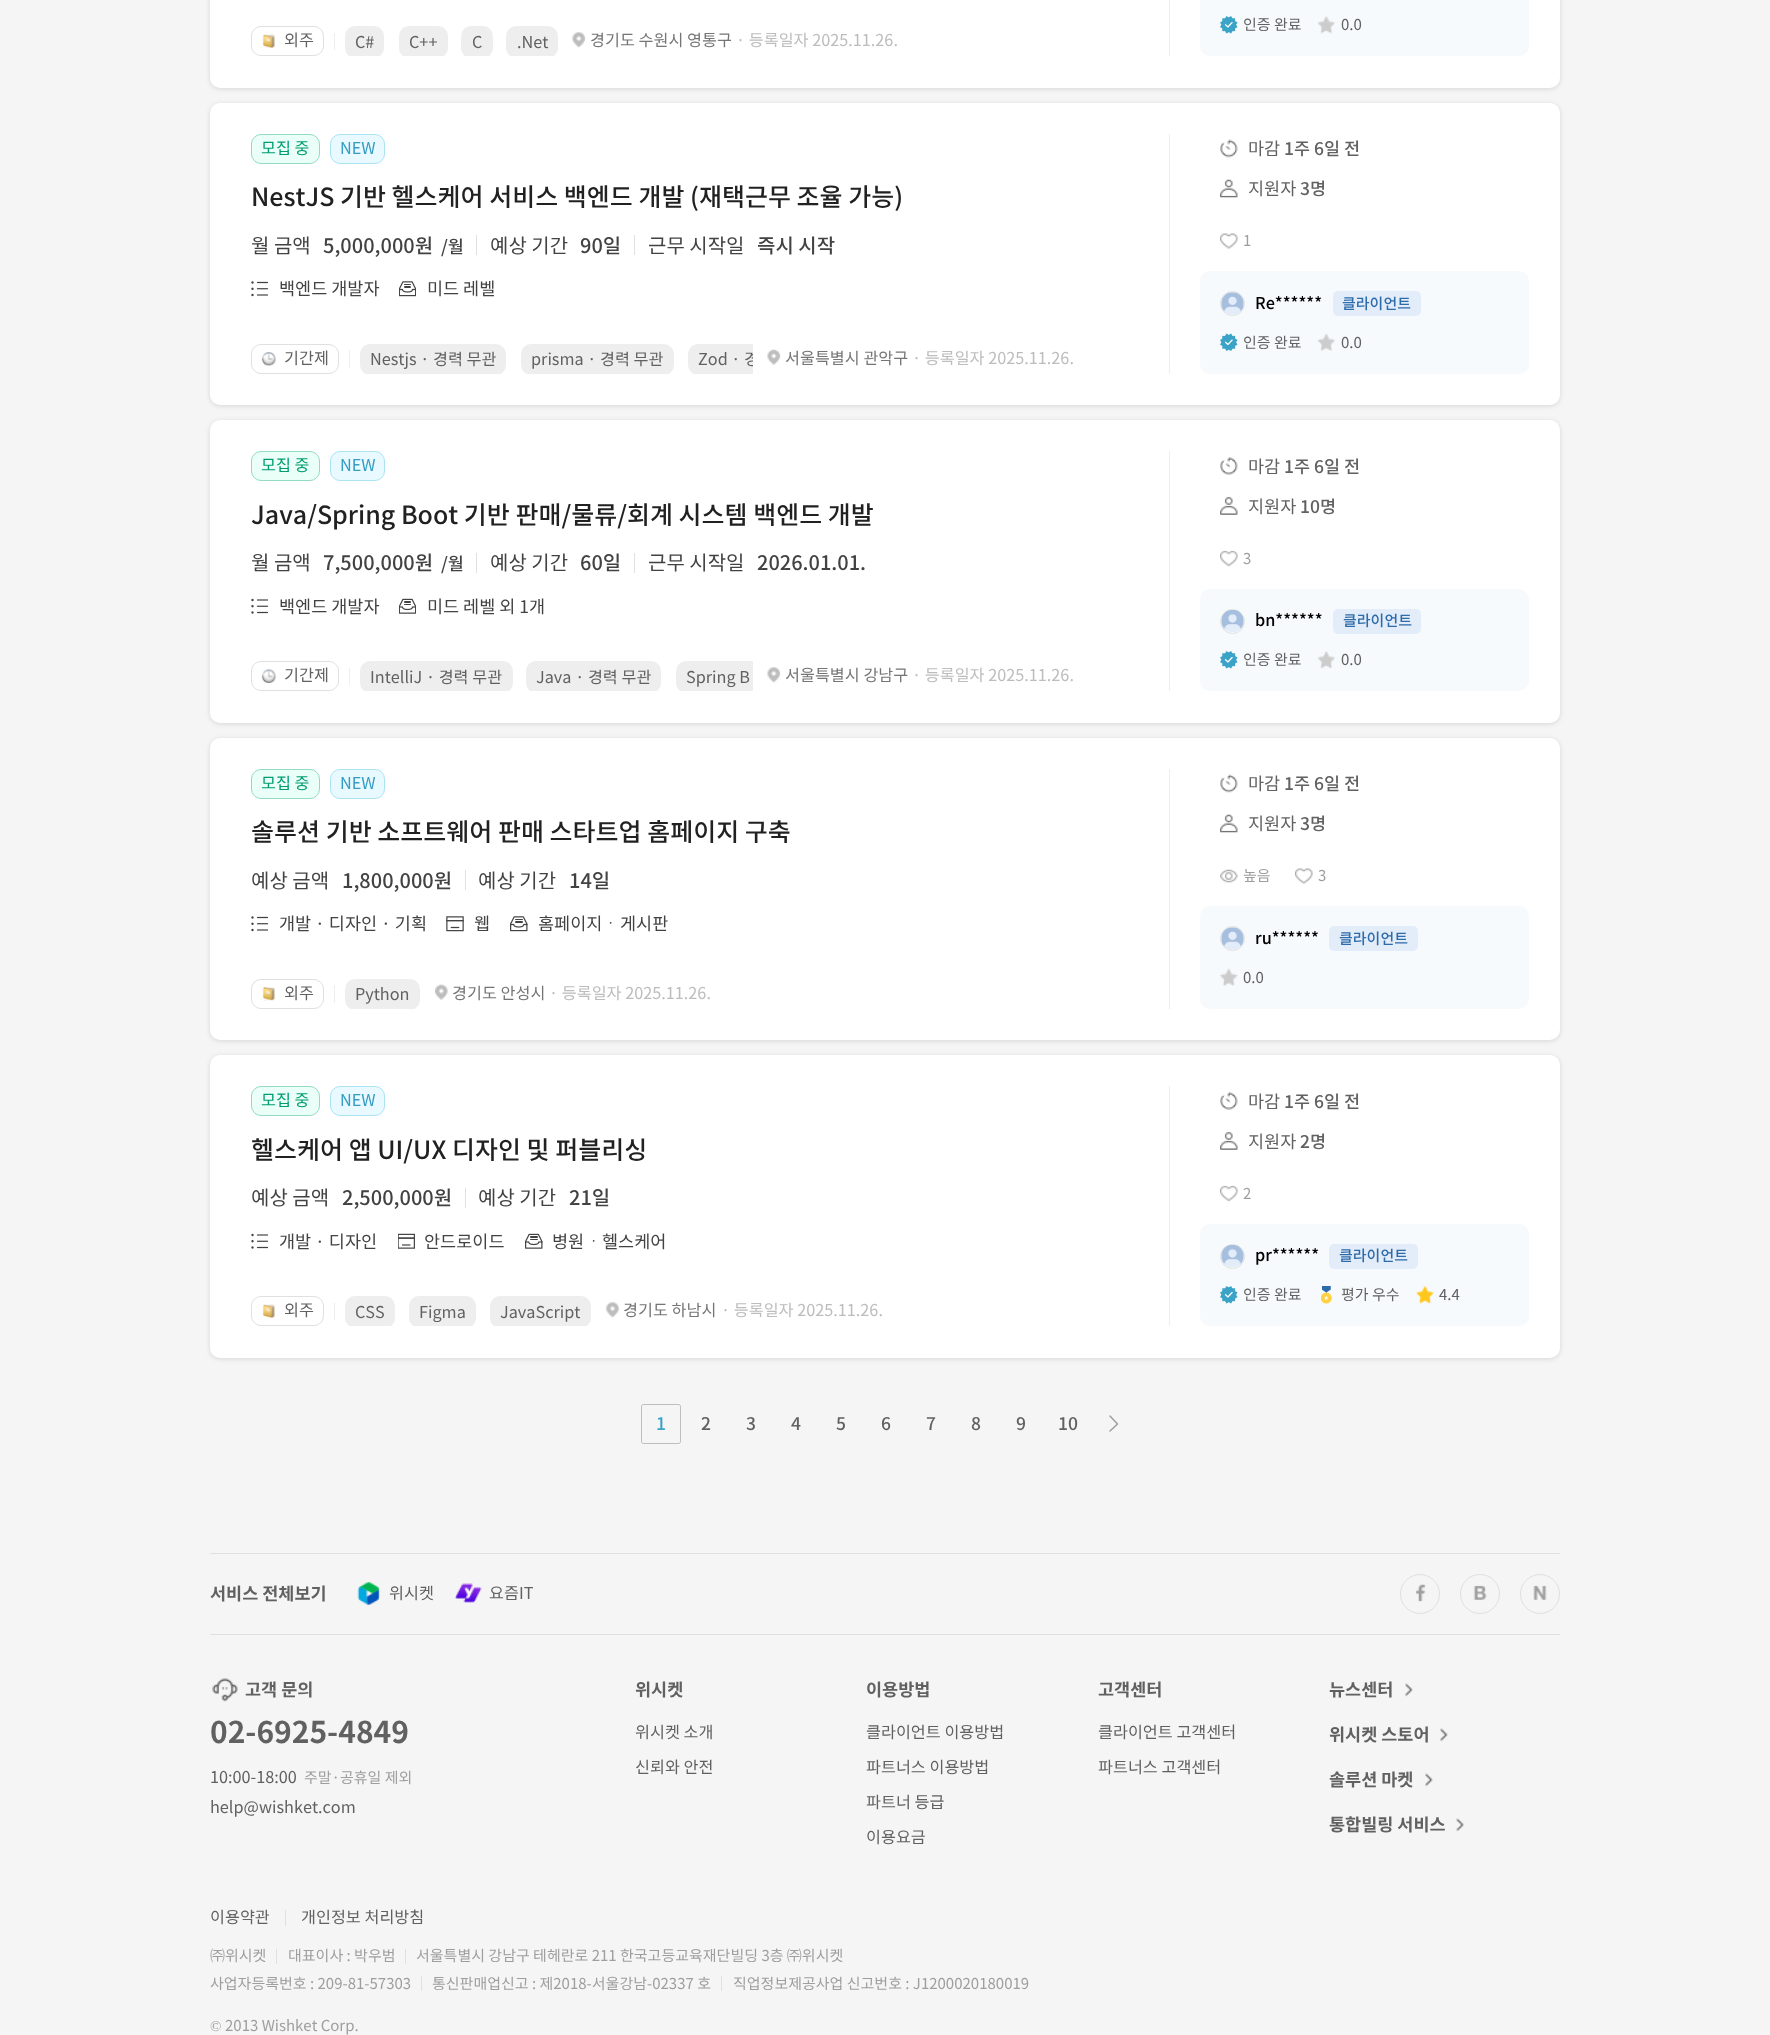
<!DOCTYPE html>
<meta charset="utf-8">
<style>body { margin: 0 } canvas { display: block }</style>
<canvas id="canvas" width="1770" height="2035"></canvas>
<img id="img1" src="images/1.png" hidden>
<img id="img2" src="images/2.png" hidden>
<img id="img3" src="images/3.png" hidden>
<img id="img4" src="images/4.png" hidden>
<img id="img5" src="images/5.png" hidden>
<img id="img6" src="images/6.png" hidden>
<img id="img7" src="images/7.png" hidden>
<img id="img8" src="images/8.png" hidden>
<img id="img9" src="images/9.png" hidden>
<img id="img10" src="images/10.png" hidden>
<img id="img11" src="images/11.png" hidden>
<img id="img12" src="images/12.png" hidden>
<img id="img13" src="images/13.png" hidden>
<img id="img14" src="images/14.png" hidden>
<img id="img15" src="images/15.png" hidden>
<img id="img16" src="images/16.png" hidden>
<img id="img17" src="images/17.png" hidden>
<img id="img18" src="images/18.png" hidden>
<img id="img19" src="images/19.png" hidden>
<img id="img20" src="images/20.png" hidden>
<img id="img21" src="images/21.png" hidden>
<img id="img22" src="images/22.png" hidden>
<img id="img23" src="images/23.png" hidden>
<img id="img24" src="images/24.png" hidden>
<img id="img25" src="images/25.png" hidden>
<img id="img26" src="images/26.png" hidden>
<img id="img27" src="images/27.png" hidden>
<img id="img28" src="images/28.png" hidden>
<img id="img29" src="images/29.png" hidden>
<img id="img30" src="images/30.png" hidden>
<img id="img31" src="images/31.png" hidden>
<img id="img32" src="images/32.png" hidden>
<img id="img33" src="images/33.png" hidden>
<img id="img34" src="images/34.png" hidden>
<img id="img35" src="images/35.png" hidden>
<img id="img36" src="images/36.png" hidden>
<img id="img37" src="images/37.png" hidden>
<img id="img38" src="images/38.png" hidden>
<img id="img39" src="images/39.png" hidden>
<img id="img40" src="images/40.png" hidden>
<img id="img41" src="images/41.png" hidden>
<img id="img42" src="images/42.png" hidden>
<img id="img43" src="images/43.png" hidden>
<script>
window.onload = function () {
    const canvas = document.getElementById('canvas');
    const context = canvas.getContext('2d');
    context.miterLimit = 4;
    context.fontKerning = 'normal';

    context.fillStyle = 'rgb(245, 245, 245)';
    context.fillRect(0, 0, 1770, 2035);
    context.fillStyle = 'rgba(0, 0, 0, 0.12)';
    context.filter = 'blur(2.5px)';
    context.beginPath();
    context.roundRect(210, -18, 1350, 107, 10);
    context.fill();
    context.filter = 'none';
    context.fillStyle = 'rgb(255, 255, 255)';
    context.beginPath();
    context.roundRect(210, -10, 1350, 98, 10);
    context.fill();
    context.fillStyle = 'rgb(238, 238, 238)';
    context.fillRect(1169, 0, 1, 56);
    context.fillStyle = 'rgb(247, 250, 252)';
    context.beginPath();
    context.roundRect(1200, -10, 329, 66, 10);
    context.fill();
    context.drawImage(document.getElementById('img1'), 1220, 16, 18, 18);
    context.drawImage(document.getElementById('img2'), 1317, 16, 18, 18);
    context.beginPath();
    context.roundRect(251.5, 26.5, 72, 29, 9.5);
    context.strokeStyle = 'rgb(224, 224, 224)';
    context.stroke();
    context.drawImage(document.getElementById('img3'), 262, 34, 13, 14);
    context.fillStyle = 'rgb(238, 238, 238)';
    context.fillRect(334, 33, 1, 17);
    context.save();
    context.beginPath();
    context.rect(345, 26, 213, 30);
    context.clip();
    context.beginPath();
    context.roundRect(345, 26, 39, 32, 10);
    context.fill();
    context.beginPath();
    context.roundRect(399, 26, 49, 32, 10);
    context.fill();
    context.beginPath();
    context.roundRect(461, 26, 32, 32, 10);
    context.fill();
    context.beginPath();
    context.roundRect(506, 26, 52, 32, 10);
    context.fill();
    context.restore();
    context.drawImage(document.getElementById('img4'), 572, 32, 14, 16);
    context.fillStyle = 'rgba(0, 0, 0, 0.12)';
    context.filter = 'blur(2.5px)';
    context.beginPath();
    context.roundRect(210, 104, 1350, 302, 10);
    context.fill();
    context.filter = 'none';
    context.fillStyle = 'rgb(255, 255, 255)';
    context.beginPath();
    context.roundRect(210, 103, 1350, 302, 10);
    context.fill();
    context.fillStyle = 'rgb(235, 255, 249)';
    context.beginPath();
    context.roundRect(251.5, 134.5, 68, 29, 9.5);
    context.fill();
    context.strokeStyle = 'rgb(147, 219, 198)';
    context.stroke();
    context.fillStyle = 'rgb(232, 250, 255)';
    context.beginPath();
    context.roundRect(330.5, 134.5, 54, 29, 9.5);
    context.fill();
    context.strokeStyle = 'rgb(171, 227, 242)';
    context.stroke();
    context.fillStyle = 'rgb(224, 224, 224)';
    context.fillRect(476, 235, 1, 20);
    context.fillRect(634, 235, 1, 20);
    context.drawImage(document.getElementById('img5'), 251, 281, 18, 16);
    context.drawImage(document.getElementById('img6'), 399, 281, 17, 16);
    context.beginPath();
    context.roundRect(251.5, 344.5, 87, 29, 9.5);
    context.strokeStyle = 'rgb(224, 224, 224)';
    context.stroke();
    context.drawImage(document.getElementById('img7'), 261, 352, 15, 14);
    context.fillStyle = 'rgb(238, 238, 238)';
    context.fillRect(349, 350, 1, 18);
    context.save();
    context.beginPath();
    context.rect(360, 344, 393, 30);
    context.clip();
    context.beginPath();
    context.roundRect(360, 344, 146, 31, 10);
    context.fill();
    context.beginPath();
    context.roundRect(521, 344, 153, 31, 10);
    context.fill();
    context.restore();
    context.drawImage(document.getElementById('img8'), 767, 349, 14, 16);
    context.fillRect(1169, 134, 1, 240);
    context.drawImage(document.getElementById('img9'), 1220, 139, 18, 19);
    context.drawImage(document.getElementById('img10'), 1220, 179, 18, 19);
    context.drawImage(document.getElementById('img11'), 1220, 233, 18, 16);
    context.fillStyle = 'rgb(247, 250, 252)';
    context.beginPath();
    context.roundRect(1200, 271, 329, 103, 10);
    context.fill();
    context.beginPath();
    context.arc(1232.5, 303.5, 12, 0, 2 * Math.PI);
    context.stroke();
    context.drawImage(document.getElementById('img12'), 1221, 292, 23, 23);
    context.fillStyle = 'rgb(227, 237, 250)';
    context.beginPath();
    context.roundRect(1333, 291, 88, 25, 5);
    context.fill();
    context.drawImage(document.getElementById('img13'), 1220, 333, 18, 18);
    context.drawImage(document.getElementById('img14'), 1317, 333, 18, 18);
    context.fillStyle = 'rgba(0, 0, 0, 0.12)';
    context.filter = 'blur(2.5px)';
    context.beginPath();
    context.roundRect(210, 421, 1350, 303, 10);
    context.fill();
    context.filter = 'none';
    context.fillStyle = 'rgb(255, 255, 255)';
    context.beginPath();
    context.roundRect(210, 420, 1350, 303, 10);
    context.fill();
    context.fillStyle = 'rgb(235, 255, 249)';
    context.beginPath();
    context.roundRect(251.5, 451.5, 68, 29, 9.5);
    context.fill();
    context.strokeStyle = 'rgb(147, 219, 198)';
    context.stroke();
    context.fillStyle = 'rgb(232, 250, 255)';
    context.beginPath();
    context.roundRect(330.5, 451.5, 54, 29, 9.5);
    context.fill();
    context.strokeStyle = 'rgb(171, 227, 242)';
    context.stroke();
    context.fillStyle = 'rgb(224, 224, 224)';
    context.fillRect(476, 553, 1, 20);
    context.fillRect(634, 553, 1, 20);
    context.drawImage(document.getElementById('img15'), 251, 598, 18, 16);
    context.drawImage(document.getElementById('img16'), 399, 598, 17, 16);
    context.beginPath();
    context.roundRect(251.5, 661.5, 87, 29, 9.5);
    context.strokeStyle = 'rgb(224, 224, 224)';
    context.stroke();
    context.drawImage(document.getElementById('img17'), 261, 669, 15, 14);
    context.fillStyle = 'rgb(238, 238, 238)';
    context.fillRect(349, 668, 1, 17);
    context.save();
    context.beginPath();
    context.rect(360, 661, 393, 30);
    context.clip();
    context.beginPath();
    context.roundRect(360, 661, 153, 32, 10);
    context.fill();
    context.beginPath();
    context.roundRect(526, 661, 135, 32, 10);
    context.fill();
    context.restore();
    context.drawImage(document.getElementById('img18'), 767, 667, 14, 16);
    context.fillRect(1169, 451, 1, 240);
    context.drawImage(document.getElementById('img19'), 1220, 457, 18, 18);
    context.drawImage(document.getElementById('img20'), 1220, 497, 18, 18);
    context.drawImage(document.getElementById('img21'), 1220, 550, 18, 17);
    context.fillStyle = 'rgb(247, 250, 252)';
    context.beginPath();
    context.roundRect(1200, 589, 329, 102, 10);
    context.fill();
    context.beginPath();
    context.arc(1232.5, 621.5, 12, 0, 2 * Math.PI);
    context.stroke();
    context.drawImage(document.getElementById('img22'), 1221, 610, 23, 22);
    context.fillStyle = 'rgb(227, 237, 250)';
    context.beginPath();
    context.roundRect(1333, 609, 88, 25, 5);
    context.fill();
    context.drawImage(document.getElementById('img1'), 1220, 651, 18, 18);
    context.drawImage(document.getElementById('img2'), 1317, 651, 18, 18);
    context.fillStyle = 'rgba(0, 0, 0, 0.12)';
    context.filter = 'blur(2.5px)';
    context.beginPath();
    context.roundRect(210, 739, 1350, 302, 10);
    context.fill();
    context.filter = 'none';
    context.fillStyle = 'rgb(255, 255, 255)';
    context.beginPath();
    context.roundRect(210, 738, 1350, 302, 10);
    context.fill();
    context.fillStyle = 'rgb(235, 255, 249)';
    context.beginPath();
    context.roundRect(251.5, 769.5, 68, 29, 9.5);
    context.fill();
    context.strokeStyle = 'rgb(147, 219, 198)';
    context.stroke();
    context.fillStyle = 'rgb(232, 250, 255)';
    context.beginPath();
    context.roundRect(330.5, 769.5, 54, 29, 9.5);
    context.fill();
    context.strokeStyle = 'rgb(171, 227, 242)';
    context.stroke();
    context.fillStyle = 'rgb(224, 224, 224)';
    context.fillRect(465, 870, 1, 20);
    context.drawImage(document.getElementById('img5'), 251, 916, 18, 16);
    context.drawImage(document.getElementById('img23'), 446, 916, 18, 16);
    context.drawImage(document.getElementById('img24'), 510, 916, 18, 16);
    context.beginPath();
    context.roundRect(251.5, 979.5, 72, 29, 9.5);
    context.strokeStyle = 'rgb(224, 224, 224)';
    context.stroke();
    context.drawImage(document.getElementById('img25'), 262, 987, 13, 14);
    context.fillStyle = 'rgb(238, 238, 238)';
    context.fillRect(334, 985, 1, 18);
    context.save();
    context.beginPath();
    context.rect(345, 979, 75, 30);
    context.clip();
    context.beginPath();
    context.roundRect(345, 979, 75, 31, 10);
    context.fill();
    context.restore();
    context.drawImage(document.getElementById('img26'), 435, 984, 13, 16);
    context.fillRect(1169, 769, 1, 240);
    context.drawImage(document.getElementById('img9'), 1220, 774, 18, 19);
    context.drawImage(document.getElementById('img10'), 1220, 814, 18, 19);
    context.drawImage(document.getElementById('img27'), 1220, 869, 18, 14);
    context.drawImage(document.getElementById('img28'), 1295, 868, 18, 16);
    context.fillStyle = 'rgb(247, 250, 252)';
    context.beginPath();
    context.roundRect(1200, 906, 329, 103, 10);
    context.fill();
    context.beginPath();
    context.arc(1232.5, 938.5, 12, 0, 2 * Math.PI);
    context.stroke();
    context.drawImage(document.getElementById('img29'), 1221, 927, 23, 23);
    context.fillStyle = 'rgb(227, 237, 250)';
    context.beginPath();
    context.roundRect(1329, 926, 89, 25, 5);
    context.fill();
    context.drawImage(document.getElementById('img30'), 1220, 968, 18, 18);
    context.fillStyle = 'rgba(0, 0, 0, 0.12)';
    context.filter = 'blur(2.5px)';
    context.beginPath();
    context.roundRect(210, 1056, 1350, 303, 10);
    context.fill();
    context.filter = 'none';
    context.fillStyle = 'rgb(255, 255, 255)';
    context.beginPath();
    context.roundRect(210, 1055, 1350, 303, 10);
    context.fill();
    context.fillStyle = 'rgb(235, 255, 249)';
    context.beginPath();
    context.roundRect(251.5, 1086.5, 68, 29, 9.5);
    context.fill();
    context.strokeStyle = 'rgb(147, 219, 198)';
    context.stroke();
    context.fillStyle = 'rgb(232, 250, 255)';
    context.beginPath();
    context.roundRect(330.5, 1086.5, 54, 29, 9.5);
    context.fill();
    context.strokeStyle = 'rgb(171, 227, 242)';
    context.stroke();
    context.fillStyle = 'rgb(224, 224, 224)';
    context.fillRect(465, 1188, 1, 20);
    context.drawImage(document.getElementById('img15'), 251, 1233, 18, 16);
    context.drawImage(document.getElementById('img31'), 398, 1233, 17, 16);
    context.drawImage(document.getElementById('img32'), 525, 1233, 18, 16);
    context.beginPath();
    context.roundRect(251.5, 1296.5, 72, 29, 9.5);
    context.strokeStyle = 'rgb(224, 224, 224)';
    context.stroke();
    context.drawImage(document.getElementById('img3'), 262, 1304, 13, 14);
    context.fillStyle = 'rgb(238, 238, 238)';
    context.fillRect(334, 1303, 1, 17);
    context.save();
    context.beginPath();
    context.rect(345, 1296, 246, 30);
    context.clip();
    context.beginPath();
    context.roundRect(345, 1296, 50, 32, 10);
    context.fill();
    context.beginPath();
    context.roundRect(409, 1296, 67, 32, 10);
    context.fill();
    context.beginPath();
    context.roundRect(490, 1296, 101, 32, 10);
    context.fill();
    context.restore();
    context.drawImage(document.getElementById('img33'), 606, 1302, 13, 16);
    context.fillRect(1169, 1086, 1, 240);
    context.drawImage(document.getElementById('img19'), 1220, 1092, 18, 18);
    context.drawImage(document.getElementById('img20'), 1220, 1132, 18, 18);
    context.drawImage(document.getElementById('img21'), 1220, 1185, 18, 17);
    context.fillStyle = 'rgb(247, 250, 252)';
    context.beginPath();
    context.roundRect(1200, 1224, 329, 102, 10);
    context.fill();
    context.beginPath();
    context.arc(1232.5, 1256.5, 12, 0, 2 * Math.PI);
    context.stroke();
    context.drawImage(document.getElementById('img22'), 1221, 1245, 23, 22);
    context.fillStyle = 'rgb(227, 237, 250)';
    context.beginPath();
    context.roundRect(1329, 1244, 89, 25, 5);
    context.fill();
    context.drawImage(document.getElementById('img1'), 1220, 1286, 18, 18);
    context.drawImage(document.getElementById('img34'), 1321, 1286, 11, 18);
    context.drawImage(document.getElementById('img35'), 1416, 1286, 18, 18);
    context.beginPath();
    context.roundRect(641.5, 1404.5, 39, 39, 2);
    context.strokeStyle = 'rgb(189, 189, 189)';
    context.stroke();
    context.beginPath();
    context.moveTo(1110, 1431);
    context.lineTo(1117.5, 1424);
    context.lineTo(1110, 1416);
    context.strokeStyle = 'rgb(158, 158, 158)';
    context.lineWidth = 1.5;
    context.lineCap = 'round';
    context.lineJoin = 'round';
    context.stroke();
    context.fillStyle = 'rgb(224, 224, 224)';
    context.fillRect(210, 1553, 1350, 1);
    context.fillRect(210, 1634, 1350, 1);
    context.drawImage(document.getElementById('img36'), 357, 1582, 23, 23);
    context.drawImage(document.getElementById('img37'), 455, 1583, 27, 20);
    context.beginPath();
    context.arc(1420, 1594, 19.5, 0, 2 * Math.PI);
    context.strokeStyle = 'rgb(224, 224, 224)';
    context.lineWidth = 1;
    context.stroke();
    context.drawImage(document.getElementById('img38'), 1416, 1584, 10, 18);
    context.beginPath();
    context.arc(1480, 1594, 19.5, 0, 2 * Math.PI);
    context.stroke();
    context.drawImage(document.getElementById('img39'), 1473, 1585, 14, 15);
    context.beginPath();
    context.arc(1540, 1594, 19.5, 0, 2 * Math.PI);
    context.stroke();
    context.drawImage(document.getElementById('img40'), 1533, 1585, 14, 15);
    context.drawImage(document.getElementById('img41'), 212, 1678, 26, 24);
    context.drawImage(document.getElementById('img42'), 1405, 1683, 8, 14);
    context.drawImage(document.getElementById('img42'), 1440, 1728, 8, 14);
    context.drawImage(document.getElementById('img42'), 1425, 1773, 8, 14);
    context.drawImage(document.getElementById('img43'), 1456, 1818, 8, 14);
    context.fillRect(285, 1910, 1, 16);
    context.fillRect(276, 1949, 1, 15);
    context.fillRect(405, 1949, 1, 15);
    context.fillRect(421, 1976, 1, 15);
    context.fillRect(721, 1976, 1, 15);
    context.font = '15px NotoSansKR';
    context.fillStyle = 'rgb(97, 97, 97)';
    context.fillText('인증 완료', 1243, 30);
    context.fillText('0.0', 1341, 30);
    context.font = '16.25px NotoSansKR';
    context.fillText('외주', 284, 46);
    context.fillText('C#', 355, 48);
    context.fillText('C++', 409, 48);
    context.fillText('C', 472, 48);
    context.fillText('.Net', 517, 48);
    context.fillStyle = 'rgb(117, 117, 117)';
    context.fillText('경기도 수원시 영통구', 590, 46);
    context.fillStyle = 'rgb(189, 189, 189)';
    context.fillText('· 등록일자 2025.11.26.', 736, 46);
    context.fillStyle = 'rgb(0, 156, 111)';
    context.fillText('모집 중', 261, 154);
    context.fillStyle = 'rgb(54, 156, 194)';
    context.fillText('NEW', 340, 154);
    context.font = '500 25px NotoSansKR';
    context.fillStyle = 'rgb(33, 33, 33)';
    context.fillText('NestJS 기반 헬스케어 서비스 백엔드 개발 (재택근무 조율 가능)', 251, 206);
    context.font = '20px NotoSansKR';
    context.fillStyle = 'rgb(66, 66, 66)';
    context.fillText('월 금액', 251, 253);
    context.font = '500 20px NotoSansKR';
    context.fillText('5,000,000원', 323, 253);
    context.font = '500 17.5px NotoSansKR';
    context.fillText('/월', 441, 253);
    context.font = '20px NotoSansKR';
    context.fillText('예상 기간', 490, 253);
    context.font = '500 20px NotoSansKR';
    context.fillText('90일', 580, 253);
    context.font = '20px NotoSansKR';
    context.fillText('근무 시작일', 648, 253);
    context.font = '500 20px NotoSansKR';
    context.fillText('즉시 시작', 757, 253);
    context.font = '17.5px NotoSansKR';
    context.fillText('백엔드 개발자', 279, 295);
    context.fillText('미드 레벨', 427, 295);
    context.font = '16.25px NotoSansKR';
    context.fillStyle = 'rgb(97, 97, 97)';
    context.fillText('기간제', 284, 364);
    context.fillText('Nestjs · 경력 무관', 370, 365);
    context.fillText('prisma · 경력 무관', 531, 365);
    context.fillStyle = 'rgb(117, 117, 117)';
    context.fillText('서울특별시 관악구', 785, 364);
    context.save();
    context.beginPath();
    context.rect(360, 344, 393, 30);
    context.clip();
    context.fillStyle = 'rgb(238, 238, 238)';
    context.beginPath();
    context.roundRect(688, 344, 130, 31, 10);
    context.fill();
    context.fillStyle = 'rgb(97, 97, 97)';
    context.fillText('Zod · 경', 698, 365);
    context.restore();
    context.fillStyle = 'rgb(189, 189, 189)';
    context.fillText('· 등록일자 2025.11.26.', 912, 364);
    context.font = '17.5px NotoSansKR';
    context.fillStyle = 'rgb(97, 97, 97)';
    context.fillText('마감', 1248, 155);
    context.font = '500 17.5px NotoSansKR';
    context.fillText('1주 6일 전', 1284, 155);
    context.font = '17.5px NotoSansKR';
    context.fillText('지원자', 1248, 195);
    context.font = '500 17.5px NotoSansKR';
    context.fillText('3명', 1300, 195);
    context.font = '15px NotoSansKR';
    context.fillStyle = 'rgb(158, 158, 158)';
    context.fillText('1', 1243, 246);
    context.font = '500 16.25px NotoSansKR';
    context.fillStyle = 'rgb(0, 0, 0)';
    context.fillText('Re******', 1255, 309);
    context.font = '500 15px NotoSansKR';
    context.fillStyle = 'rgb(46, 107, 170)';
    context.fillText('클라이언트', 1342, 309);
    context.font = '15px NotoSansKR';
    context.fillStyle = 'rgb(97, 97, 97)';
    context.fillText('인증 완료', 1243, 348);
    context.fillText('0.0', 1341, 348);
    context.font = '16.25px NotoSansKR';
    context.fillStyle = 'rgb(0, 156, 111)';
    context.fillText('모집 중', 261, 471);
    context.fillStyle = 'rgb(54, 156, 194)';
    context.fillText('NEW', 340, 471);
    context.font = '500 25px NotoSansKR';
    context.fillStyle = 'rgb(33, 33, 33)';
    context.fillText('Java/Spring Boot 기반 판매/물류/회계 시스템 백엔드 개발', 251, 524);
    context.font = '20px NotoSansKR';
    context.fillStyle = 'rgb(66, 66, 66)';
    context.fillText('월 금액', 251, 570);
    context.font = '500 20px NotoSansKR';
    context.fillText('7,500,000원', 323, 570);
    context.font = '500 17.5px NotoSansKR';
    context.fillText('/월', 441, 570);
    context.font = '20px NotoSansKR';
    context.fillText('예상 기간', 490, 570);
    context.font = '500 20px NotoSansKR';
    context.fillText('60일', 580, 570);
    context.font = '20px NotoSansKR';
    context.fillText('근무 시작일', 648, 570);
    context.font = '500 20px NotoSansKR';
    context.fillText('2026.01.01.', 757, 570);
    context.font = '17.5px NotoSansKR';
    context.fillText('백엔드 개발자', 279, 613);
    context.fillText('미드 레벨 외 1개', 427, 613);
    context.font = '16.25px NotoSansKR';
    context.fillStyle = 'rgb(97, 97, 97)';
    context.fillText('기간제', 284, 681);
    context.fillText('IntelliJ · 경력 무관', 370, 683);
    context.fillText('Java · 경력 무관', 536, 683);
    context.fillStyle = 'rgb(117, 117, 117)';
    context.fillText('서울특별시 강남구', 785, 681);
    context.save();
    context.beginPath();
    context.rect(360, 661, 393, 30);
    context.clip();
    context.fillStyle = 'rgb(238, 238, 238)';
    context.beginPath();
    context.roundRect(676, 661, 190, 32, 10);
    context.fill();
    context.restore();
    context.fillStyle = 'rgb(97, 97, 97)';
    context.fillText('Spring B', 686, 683);
    context.fillStyle = 'rgb(189, 189, 189)';
    context.fillText('· 등록일자 2025.11.26.', 912, 681);
    context.font = '17.5px NotoSansKR';
    context.fillStyle = 'rgb(97, 97, 97)';
    context.fillText('마감', 1248, 473);
    context.font = '500 17.5px NotoSansKR';
    context.fillText('1주 6일 전', 1284, 473);
    context.font = '17.5px NotoSansKR';
    context.fillText('지원자', 1248, 513);
    context.font = '500 17.5px NotoSansKR';
    context.fillText('10명', 1300, 513);
    context.font = '15px NotoSansKR';
    context.fillStyle = 'rgb(158, 158, 158)';
    context.fillText('3', 1243, 564);
    context.font = '500 16.25px NotoSansKR';
    context.fillStyle = 'rgb(0, 0, 0)';
    context.fillText('bn******', 1255, 626);
    context.font = '500 15px NotoSansKR';
    context.fillStyle = 'rgb(46, 107, 170)';
    context.fillText('클라이언트', 1343, 626);
    context.font = '15px NotoSansKR';
    context.fillStyle = 'rgb(97, 97, 97)';
    context.fillText('인증 완료', 1243, 665);
    context.fillText('0.0', 1341, 665);
    context.font = '16.25px NotoSansKR';
    context.fillStyle = 'rgb(0, 156, 111)';
    context.fillText('모집 중', 261, 789);
    context.fillStyle = 'rgb(54, 156, 194)';
    context.fillText('NEW', 340, 789);
    context.font = '500 25px NotoSansKR';
    context.fillStyle = 'rgb(33, 33, 33)';
    context.fillText('솔루션 기반 소프트웨어 판매 스타트업 홈페이지 구축', 251, 841);
    context.font = '20px NotoSansKR';
    context.fillStyle = 'rgb(66, 66, 66)';
    context.fillText('예상 금액', 251, 888);
    context.font = '500 20px NotoSansKR';
    context.fillText('1,800,000원', 342, 888);
    context.font = '20px NotoSansKR';
    context.fillText('예상 기간', 478, 888);
    context.font = '500 20px NotoSansKR';
    context.fillText('14일', 569, 888);
    context.font = '17.5px NotoSansKR';
    context.fillText('개발 · 디자인 · 기획', 279, 930);
    context.fillText('웹', 474, 930);
    context.fillText('홈페이지', 538, 930);
    context.font = '500 17.5px WenQuanYi Zen Hei';
    context.fillText('ㆍ', 602, 930);
    context.font = '17.5px NotoSansKR';
    context.fillText('게시판', 620, 930);
    context.font = '16.25px NotoSansKR';
    context.fillStyle = 'rgb(97, 97, 97)';
    context.fillText('외주', 284, 999);
    context.fillText('Python', 355, 1000);
    context.fillStyle = 'rgb(117, 117, 117)';
    context.fillText('경기도 안성시', 452, 999);
    context.fillStyle = 'rgb(189, 189, 189)';
    context.fillText('· 등록일자 2025.11.26.', 549, 999);
    context.font = '17.5px NotoSansKR';
    context.fillStyle = 'rgb(97, 97, 97)';
    context.fillText('마감', 1248, 790);
    context.font = '500 17.5px NotoSansKR';
    context.fillText('1주 6일 전', 1284, 790);
    context.font = '17.5px NotoSansKR';
    context.fillText('지원자', 1248, 830);
    context.font = '500 17.5px NotoSansKR';
    context.fillText('3명', 1300, 830);
    context.font = '15px NotoSansKR';
    context.fillStyle = 'rgb(158, 158, 158)';
    context.fillText('높음', 1243, 881);
    context.fillText('3', 1318, 881);
    context.font = '500 16.25px NotoSansKR';
    context.fillStyle = 'rgb(0, 0, 0)';
    context.fillText('ru******', 1255, 944);
    context.font = '500 15px NotoSansKR';
    context.fillStyle = 'rgb(46, 107, 170)';
    context.fillText('클라이언트', 1339, 944);
    context.font = '15px NotoSansKR';
    context.fillStyle = 'rgb(97, 97, 97)';
    context.fillText('0.0', 1243, 983);
    context.font = '16.25px NotoSansKR';
    context.fillStyle = 'rgb(0, 156, 111)';
    context.fillText('모집 중', 261, 1106);
    context.fillStyle = 'rgb(54, 156, 194)';
    context.fillText('NEW', 340, 1106);
    context.font = '500 25px NotoSansKR';
    context.fillStyle = 'rgb(33, 33, 33)';
    context.fillText('헬스케어 앱 UI/UX 디자인 및 퍼블리싱', 251, 1159);
    context.font = '20px NotoSansKR';
    context.fillStyle = 'rgb(66, 66, 66)';
    context.fillText('예상 금액', 251, 1205);
    context.font = '500 20px NotoSansKR';
    context.fillText('2,500,000원', 342, 1205);
    context.font = '20px NotoSansKR';
    context.fillText('예상 기간', 478, 1205);
    context.font = '500 20px NotoSansKR';
    context.fillText('21일', 569, 1205);
    context.font = '17.5px NotoSansKR';
    context.fillText('개발 · 디자인', 279, 1248);
    context.fillText('안드로이드', 424, 1248);
    context.fillText('병원', 552, 1248);
    context.font = '500 17.5px WenQuanYi Zen Hei';
    context.fillText('ㆍ', 585, 1248);
    context.font = '17.5px NotoSansKR';
    context.fillText('헬스케어', 602, 1248);
    context.font = '16.25px NotoSansKR';
    context.fillStyle = 'rgb(97, 97, 97)';
    context.fillText('외주', 284, 1316);
    context.fillText('CSS', 355, 1318);
    context.fillText('Figma', 419, 1318);
    context.fillText('JavaScript', 500, 1318);
    context.fillStyle = 'rgb(117, 117, 117)';
    context.fillText('경기도 하남시', 623, 1316);
    context.fillStyle = 'rgb(189, 189, 189)';
    context.fillText('· 등록일자 2025.11.26.', 721, 1316);
    context.font = '17.5px NotoSansKR';
    context.fillStyle = 'rgb(97, 97, 97)';
    context.fillText('마감', 1248, 1108);
    context.font = '500 17.5px NotoSansKR';
    context.fillText('1주 6일 전', 1284, 1108);
    context.font = '17.5px NotoSansKR';
    context.fillText('지원자', 1248, 1148);
    context.font = '500 17.5px NotoSansKR';
    context.fillText('2명', 1300, 1148);
    context.font = '15px NotoSansKR';
    context.fillStyle = 'rgb(158, 158, 158)';
    context.fillText('2', 1243, 1199);
    context.font = '500 16.25px NotoSansKR';
    context.fillStyle = 'rgb(0, 0, 0)';
    context.fillText('pr******', 1255, 1261);
    context.font = '500 15px NotoSansKR';
    context.fillStyle = 'rgb(46, 107, 170)';
    context.fillText('클라이언트', 1339, 1261);
    context.font = '15px NotoSansKR';
    context.fillStyle = 'rgb(97, 97, 97)';
    context.fillText('인증 완료', 1243, 1300);
    context.fillText('평가 우수', 1341, 1300);
    context.fillText('4.4', 1439, 1300);
    context.font = '500 17.5px NotoSansKR';
    context.fillStyle = 'rgb(59, 163, 199)';
    context.fillText('1', 656, 1430);
    context.fillStyle = 'rgb(97, 97, 97)';
    context.fillText('2', 701, 1430);
    context.fillText('3', 746, 1430);
    context.fillText('4', 791, 1430);
    context.fillText('5', 836, 1430);
    context.fillText('6', 881, 1430);
    context.fillText('7', 926, 1430);
    context.fillText('8', 971, 1430);
    context.fillText('9', 1016, 1430);
    context.fillText('10', 1058, 1430);
    context.font = 'bold 17.5px NotoSansKR';
    context.fillText('서비스 전체보기', 210, 1600);
    context.font = '16.25px NotoSansKR';
    context.fillText('위시켓', 389, 1599);
    context.fillText('요즘IT', 489, 1599);
    context.font = 'bold 17.5px NotoSansKR';
    context.fillText('고객 문의', 245, 1696);
    context.font = 'bold 30px NotoSansKR';
    context.fillText('02-6925-4849', 210, 1743);
    context.font = '16.25px NotoSansKR';
    context.fillText('10:00-18:00', 210, 1783);
    context.font = '15px NotoSansKR';
    context.fillStyle = 'rgb(158, 158, 158)';
    context.fillText('주말·공휴일 제외', 304, 1783);
    context.font = '16.25px NotoSansKR';
    context.fillStyle = 'rgb(97, 97, 97)';
    context.fillText('help@wishket.com', 210, 1813);
    context.font = 'bold 17.5px NotoSansKR';
    context.fillText('위시켓', 635, 1696);
    context.font = '16.25px NotoSansKR';
    context.fillText('위시켓 소개', 635, 1738);
    context.fillText('신뢰와 안전', 635, 1773);
    context.font = 'bold 17.5px NotoSansKR';
    context.fillText('이용방법', 866, 1696);
    context.font = '16.25px NotoSansKR';
    context.fillText('클라이언트 이용방법', 866, 1738);
    context.fillText('파트너스 이용방법', 866, 1773);
    context.fillText('파트너 등급', 866, 1808);
    context.fillText('이용요금', 866, 1843);
    context.font = 'bold 17.5px NotoSansKR';
    context.fillText('고객센터', 1098, 1696);
    context.font = '16.25px NotoSansKR';
    context.fillText('클라이언트 고객센터', 1098, 1738);
    context.fillText('파트너스 고객센터', 1098, 1773);
    context.font = 'bold 17.5px NotoSansKR';
    context.fillText('뉴스센터', 1329, 1696);
    context.fillText('위시켓 스토어', 1329, 1741);
    context.fillText('솔루션 마켓', 1329, 1786);
    context.fillText('통합빌링 서비스', 1329, 1831);
    context.font = '16.25px NotoSansKR';
    context.fillText('이용약관', 210, 1923);
    context.fillText('개인정보 처리방침', 301, 1923);
    context.font = '15px NotoSansKR';
    context.fillStyle = 'rgb(158, 158, 158)';
    context.fillText('㈜위시켓', 210, 1961);
    context.fillText('대표이사 : 박우범', 288, 1961);
    context.fillText('서울특별시 강남구 테헤란로 211 한국고등교육재단빌딩 3층 ㈜위시켓', 416, 1961);
    context.fillText('사업자등록번호 : 209-81-57303', 210, 1989);
    context.fillText('통신판매업신고 : 제2018-서울강남-02337 호', 432, 1989);
    context.fillText('직업정보제공사업 신고번호 : J1200020180019', 733, 1989);
    context.font = '15px Liberation Serif';
    context.fillText('©', 210, 2031);
    context.font = '15px NotoSansKR';
    context.fillText('2013 Wishket Corp.', 225, 2031);
};
</script>
